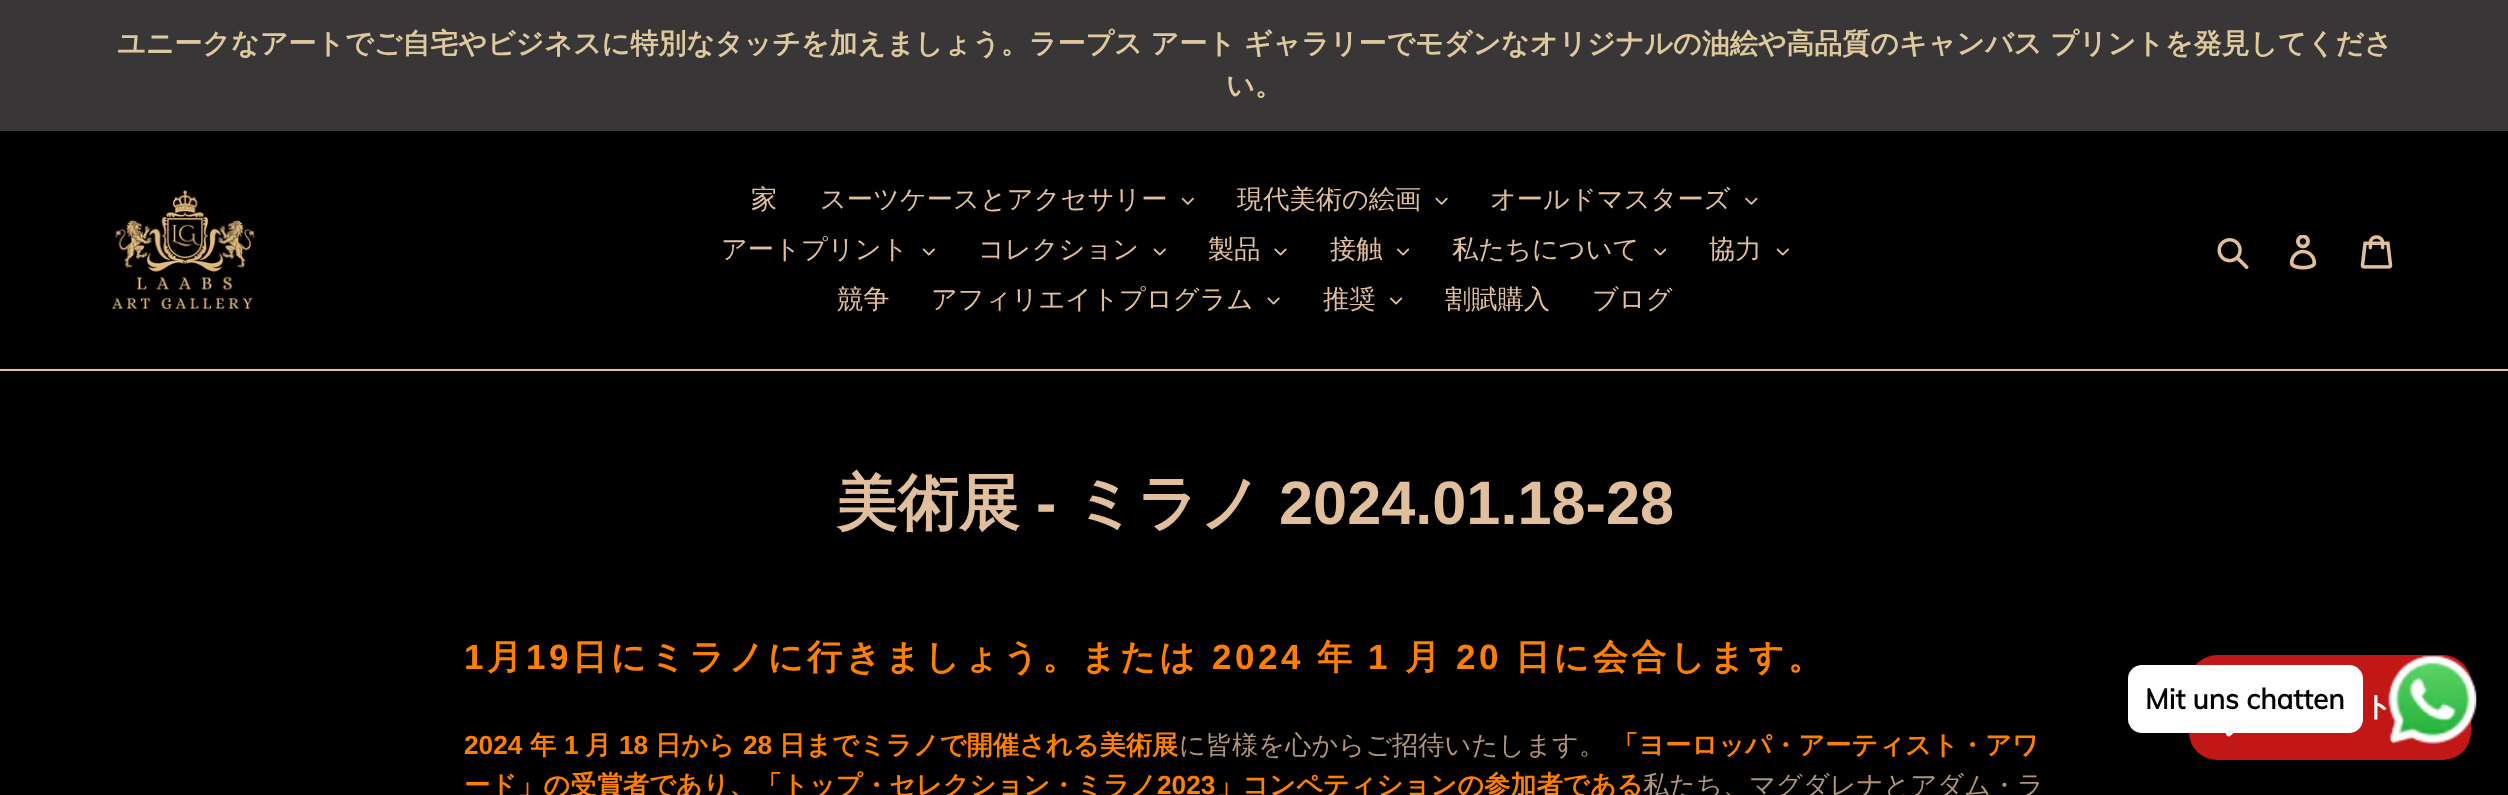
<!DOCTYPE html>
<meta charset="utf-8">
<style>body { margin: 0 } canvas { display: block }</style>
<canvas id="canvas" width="2508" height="795"></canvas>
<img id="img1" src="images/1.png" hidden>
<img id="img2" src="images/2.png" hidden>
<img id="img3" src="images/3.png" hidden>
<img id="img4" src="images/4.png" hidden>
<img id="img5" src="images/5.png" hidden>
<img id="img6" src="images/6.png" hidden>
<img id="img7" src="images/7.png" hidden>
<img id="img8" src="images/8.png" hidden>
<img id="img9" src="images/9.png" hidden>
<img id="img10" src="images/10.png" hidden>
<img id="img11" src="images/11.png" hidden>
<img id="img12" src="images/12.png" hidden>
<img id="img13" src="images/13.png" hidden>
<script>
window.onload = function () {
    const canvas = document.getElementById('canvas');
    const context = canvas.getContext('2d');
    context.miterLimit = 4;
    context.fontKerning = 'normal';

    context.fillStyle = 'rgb(0, 0, 0)';
    context.fillRect(0, 0, 2508, 795);
    context.fillStyle = 'rgb(56, 54, 54)';
    context.fillRect(0, 0, 2508, 131);
    context.fillStyle = 'rgb(225, 191, 157)';
    context.fillRect(0, 369, 2508, 2);
    context.drawImage(document.getElementById('img1'), 111, 188, 145, 122);
    context.drawImage(document.getElementById('img2'), 1181, 197, 13, 8);
    context.drawImage(document.getElementById('img3'), 1435, 197, 13, 8);
    context.drawImage(document.getElementById('img4'), 1745, 197, 13, 8);
    context.drawImage(document.getElementById('img5'), 922, 248, 13, 8);
    context.drawImage(document.getElementById('img5'), 1153, 248, 13, 8);
    context.drawImage(document.getElementById('img6'), 1274, 248, 13, 8);
    context.drawImage(document.getElementById('img7'), 1397, 248, 13, 8);
    context.drawImage(document.getElementById('img8'), 1654, 248, 12, 8);
    context.drawImage(document.getElementById('img5'), 1776, 248, 13, 8);
    context.drawImage(document.getElementById('img6'), 1267, 297, 13, 8);
    context.drawImage(document.getElementById('img7'), 1390, 297, 13, 8);
    context.drawImage(document.getElementById('img9'), 2217, 238, 32, 31);
    context.drawImage(document.getElementById('img10'), 2289, 235, 28, 35);
    context.drawImage(document.getElementById('img11'), 2360, 235, 33, 34);
    context.fillStyle = 'rgb(194, 23, 23)';
    context.beginPath();
    context.roundRect(2189, 655, 282, 105, 28);
    context.fill();
    context.drawImage(document.getElementById('img12'), 2388, 655, 89, 89);
    context.fillStyle = 'rgb(255, 255, 255)';
    context.beginPath();
    context.roundRect(2128, 665, 235, 68, 14);
    context.fill();
    context.drawImage(document.getElementById('img13'), 2226, 733, 8, 4);
    context.wordSpacing = '-0.5px';
    context.font = 'bold 28px WenQuanYi Zen Hei';
    context.fillStyle = 'rgb(222, 201, 159)';
    context.fillText('ユニークなアートでご自宅やビジネスに特別なタッチを加えましょう。ラープス アート ギャラリーでモダンなオリジナルの油絵や高品質のキャンバス プリントを発見してくださ', 117, 53);
    context.wordSpacing = '0px';
    context.fillText('い。', 1226, 95);
    context.font = '500 26.25px WenQuanYi Zen Hei';
    context.fillStyle = 'rgb(225, 191, 157)';
    context.fillText('家', 751, 208);
    context.fillText('スーツケースとアクセサリー', 820, 208);
    context.fillText('現代美術の絵画', 1237, 208);
    context.fillText('オールドマスターズ', 1490, 208);
    context.fillText('アートプリント', 721, 258);
    context.fillText('コレクション', 978, 258);
    context.fillText('製品', 1208, 258);
    context.fillText('接触', 1330, 258);
    context.fillText('私たちについて', 1452, 258);
    context.fillText('協力', 1709, 258);
    context.fillText('競争', 837, 308);
    context.fillText('アフィリエイトプログラム', 931, 308);
    context.fillText('推奨', 1323, 308);
    context.fillText('割賦購入', 1445, 308);
    context.fillText('ブログ', 1592, 308);
    context.font = 'bold 61.25px WenQuanYi Zen Hei';
    context.fillText('美術展', 836, 524);
    context.font = 'bold 61.25px Liberation Sans';
    context.fillText('-', 1036, 524);
    context.font = 'bold 61.25px WenQuanYi Zen Hei';
    context.fillText('ミラノ', 1074, 524);
    context.font = 'bold 61.25px Liberation Sans';
    context.fillText('2024.01.18-28', 1279, 524);
    context.letterSpacing = '3.5px';
    context.font = 'bold 35px Liberation Sans';
    context.fillStyle = 'rgb(255, 128, 0)';
    context.fillText('1', 464, 669);
    context.font = 'bold 35px WenQuanYi Zen Hei';
    context.fillText('月', 487, 669);
    context.font = 'bold 35px Liberation Sans';
    context.fillText('19', 526, 669);
    context.font = 'bold 35px WenQuanYi Zen Hei';
    context.fillText('日にミラノに行きましょう。または', 572, 669);
    context.font = 'bold 35px Liberation Sans';
    context.fillText('2024', 1212, 669);
    context.font = 'bold 35px WenQuanYi Zen Hei';
    context.fillText('年', 1317, 669);
    context.font = 'bold 35px Liberation Sans';
    context.fillText('1', 1368, 669);
    context.font = 'bold 35px WenQuanYi Zen Hei';
    context.fillText('月', 1405, 669);
    context.font = 'bold 35px Liberation Sans';
    context.fillText('20', 1456, 669);
    context.font = 'bold 35px WenQuanYi Zen Hei';
    context.fillText('日に会合します。', 1515, 669);
    context.letterSpacing = '0px';
    context.font = 'bold 26.25px Liberation Sans';
    context.fillText('2024', 464, 754);
    context.font = 'bold 26.25px WenQuanYi Zen Hei';
    context.fillText('年', 530, 754);
    context.font = 'bold 26.25px Liberation Sans';
    context.fillText('1', 564, 754);
    context.font = 'bold 26.25px WenQuanYi Zen Hei';
    context.fillText('月', 585, 754);
    context.font = 'bold 26.25px Liberation Sans';
    context.fillText('18', 619, 754);
    context.font = 'bold 26.25px WenQuanYi Zen Hei';
    context.fillText('日から', 655, 754);
    context.font = 'bold 26.25px Liberation Sans';
    context.fillText('28', 743, 754);
    context.font = 'bold 26.25px WenQuanYi Zen Hei';
    context.fillText('日までミラノで開催される美術展', 779, 754);
    context.font = '500 26.25px WenQuanYi Zen Hei';
    context.fillStyle = 'rgb(175, 148, 122)';
    context.fillText('に皆様を心からご招待いたします。', 1179, 754);
    context.font = 'bold 26.25px WenQuanYi Zen Hei';
    context.fillStyle = 'rgb(255, 128, 0)';
    context.fillText('「ヨーロッパ・アーティスト・アワ', 1612, 754);
    context.fillText('ード」の受賞者であり、「トップ・セレクション・ミラノ', 464, 794);
    context.font = 'bold 26.25px Liberation Sans';
    context.fillText('2023', 1157, 794);
    context.font = 'bold 26.25px WenQuanYi Zen Hei';
    context.fillText('」コンペティションの参加者である', 1216, 794);
    context.font = '500 26.25px WenQuanYi Zen Hei';
    context.fillStyle = 'rgb(175, 148, 122)';
    context.fillText('私たち、マグダレナとアダム・ラ', 1643, 794);
    context.font = 'bold 28px Muli';
    context.fillStyle = 'rgb(0, 0, 0)';
    context.fillText('Mit uns chatten', 2145, 709);
    context.font = 'bold 28px WenQuanYi Zen Hei';
    context.fillStyle = 'rgb(255, 255, 255)';
    context.fillText('ト', 2364, 716);
};
</script>
